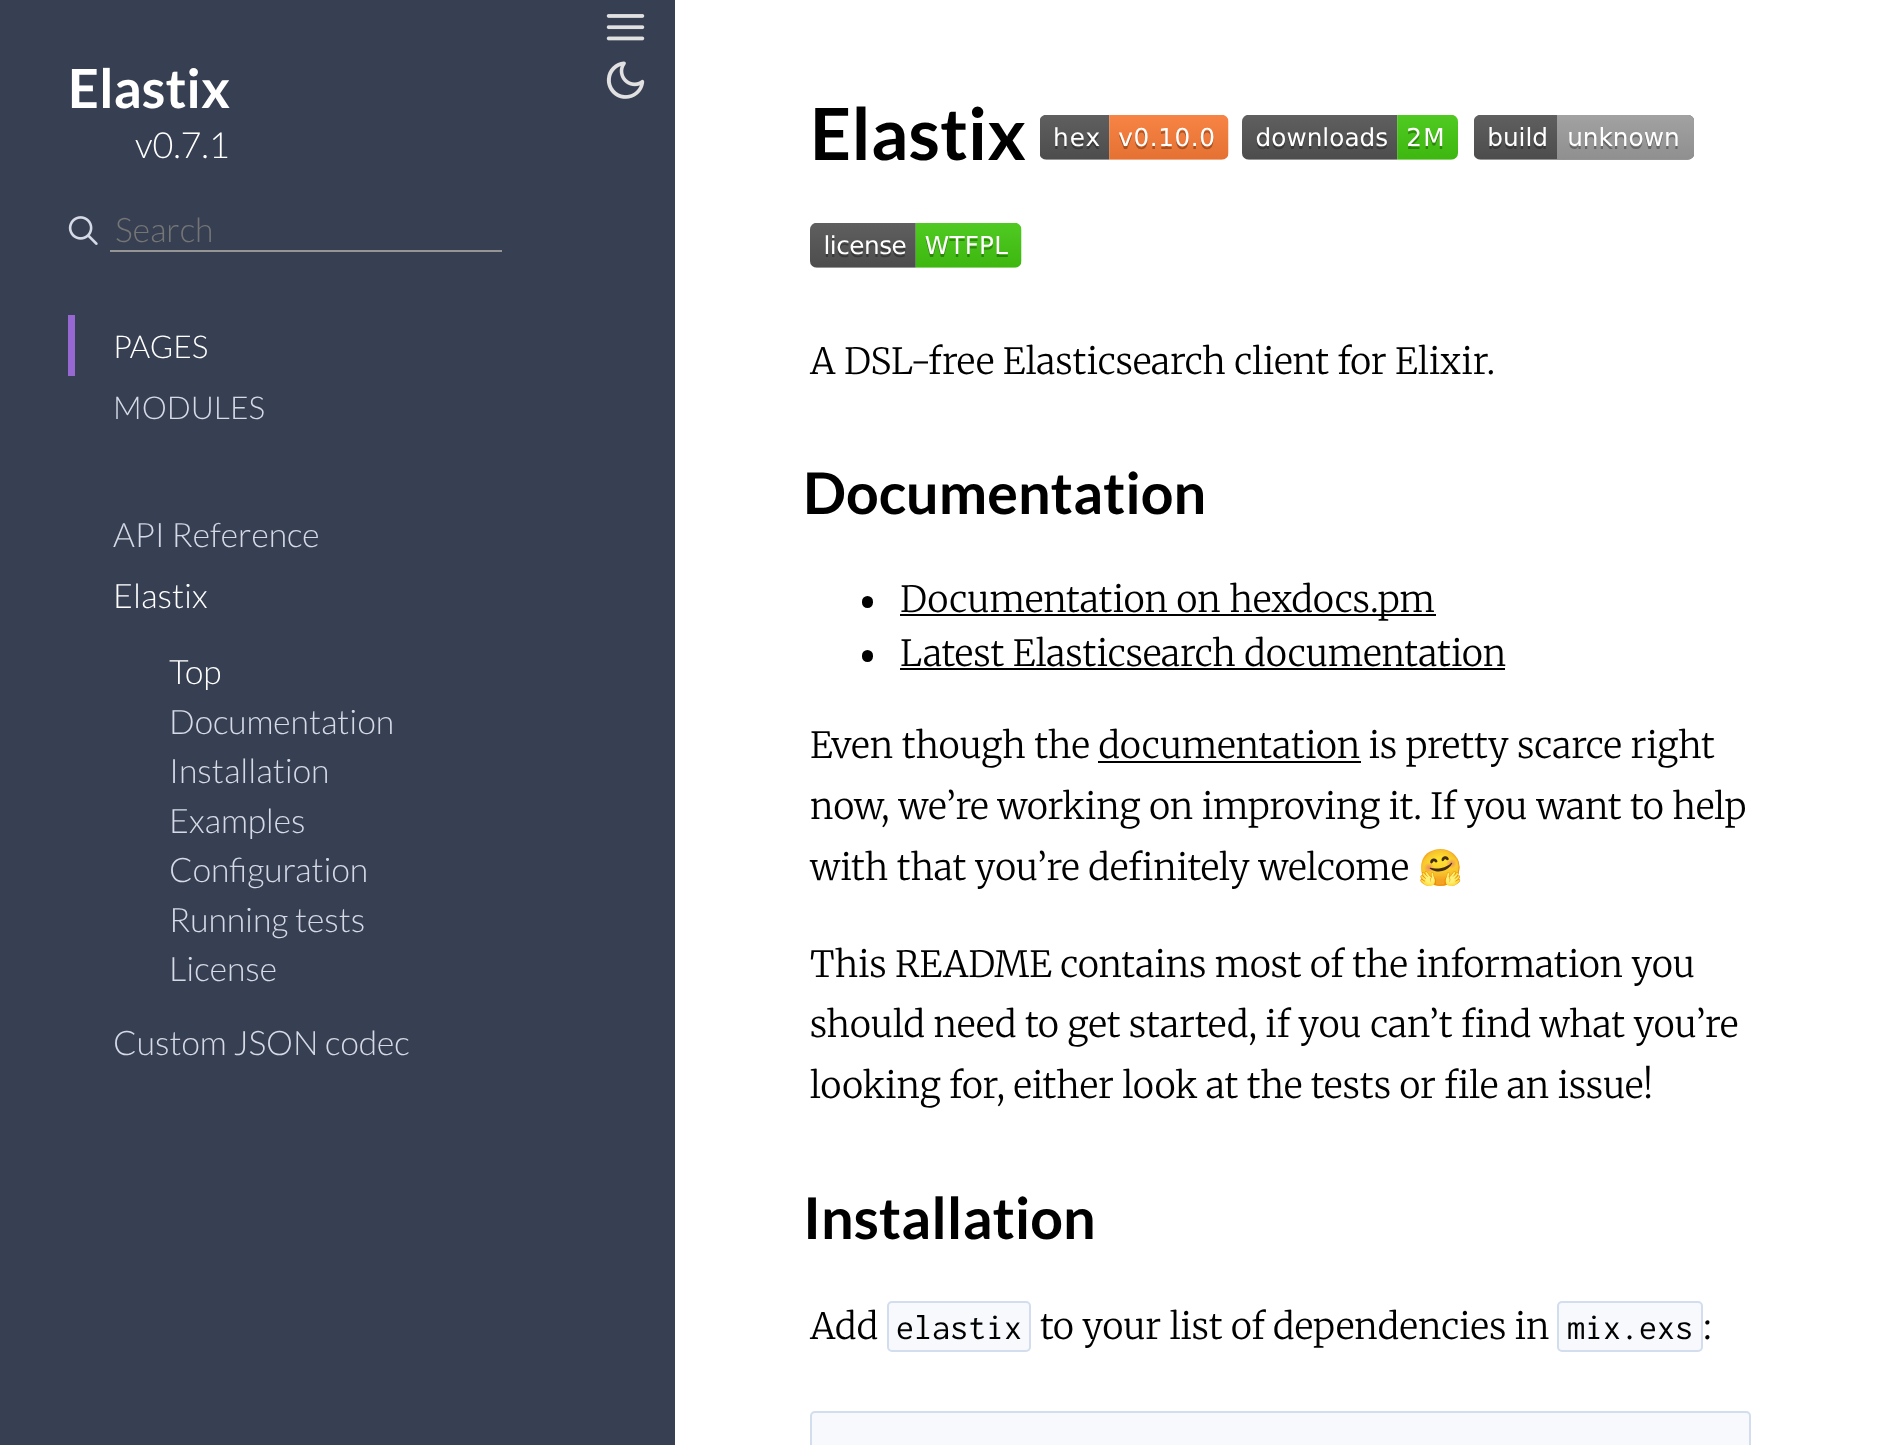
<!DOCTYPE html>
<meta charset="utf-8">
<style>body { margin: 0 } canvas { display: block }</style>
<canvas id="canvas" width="1884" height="1445"></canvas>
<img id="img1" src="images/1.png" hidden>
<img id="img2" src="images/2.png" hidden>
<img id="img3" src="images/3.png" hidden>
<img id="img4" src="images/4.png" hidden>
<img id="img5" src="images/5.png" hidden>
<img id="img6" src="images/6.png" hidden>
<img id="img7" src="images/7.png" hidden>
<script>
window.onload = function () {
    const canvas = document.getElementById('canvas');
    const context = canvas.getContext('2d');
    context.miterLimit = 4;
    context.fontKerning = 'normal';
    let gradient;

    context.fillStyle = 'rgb(255, 255, 255)';
    context.fillRect(0, 0, 1884, 1445);
    context.fillStyle = 'rgb(55, 63, 82)';
    context.fillRect(0, 0, 675, 1445);
    context.drawImage(document.getElementById('img1'), 606, 14, 39, 27);
    context.drawImage(document.getElementById('img2'), 68, 216, 30, 29);
    context.fillStyle = 'rgb(149, 149, 149)';
    context.fillRect(110, 250, 392, 2);
    context.fillStyle = 'rgb(151, 104, 209)';
    context.fillRect(68, 315, 7, 61);
    context.drawImage(document.getElementById('img3'), 606, 61, 39, 38);
    context.drawImage(document.getElementById('img4'), 1040, 115, 189, 45);
    context.drawImage(document.getElementById('img5'), 1242, 115, 216, 45);
    context.drawImage(document.getElementById('img6'), 1474, 115, 220, 45);
    context.drawImage(document.getElementById('img7'), 810, 223, 212, 45);
    context.fillStyle = 'rgb(0, 0, 0)';
    context.beginPath();
    context.roundRect(862, 596, 11, 12, 5.5);
    context.fill();
    context.fillRect(900, 614, 536, 2);
    context.beginPath();
    context.roundRect(862, 650, 11, 12, 5.5);
    context.fill();
    context.fillRect(900, 668, 605, 2);
    context.fillRect(1098, 761, 263, 2);
    context.fillStyle = 'rgb(247, 249, 252)';
    context.beginPath();
    context.roundRect(888, 1302, 142, 49, 4);
    context.fill();
    context.strokeStyle = 'rgb(210, 221, 238)';
    context.lineWidth = 2;
    context.stroke();
    context.beginPath();
    context.roundRect(1558, 1302, 144, 49, 4);
    context.fill();
    context.stroke();
    context.beginPath();
    context.moveTo(815, 1411);
    context.lineTo(1746, 1411);
    context.bezierCurveTo(1749, 1411, 1751, 1413, 1751, 1416);
    context.lineTo(1751, 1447);
    context.lineTo(810, 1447);
    context.lineTo(810, 1416);
    context.bezierCurveTo(810, 1413, 812, 1411, 815, 1411);
    context.closePath();
    context.fill();
    context.beginPath();
    context.roundRect(811, 1412, 939, 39, 4);
    context.stroke();
    context.font = 'bold 54px Lato';
    context.fillStyle = 'rgb(255, 255, 255)';
    context.fillText('Elastix', 68, 108);
    context.font = '300 36px Lato';
    context.fillText('v0.7.1', 135, 158);
    context.font = '300 33.75px Lato';
    context.fillStyle = 'rgb(117, 117, 117)';
    context.fillText('Search', 115, 242);
    context.font = '300 31.5px Lato';
    context.fillStyle = 'rgb(255, 255, 255)';
    context.fillText('PAGES', 113, 358);
    context.fillStyle = 'rgb(213, 218, 230)';
    context.fillText('MODULES', 113, 419);
    context.font = '300 33.75px Lato';
    context.fillText('API Reference', 113, 547);
    context.fillStyle = 'rgb(255, 255, 255)';
    context.fillText('Elastix', 113, 608);
    context.fillText('Top', 169, 684);
    context.fillStyle = 'rgb(213, 218, 230)';
    context.fillText('Documentation', 169, 734);
    context.fillText('Installation', 169, 783);
    context.fillText('Examples', 169, 833);
    context.fillText('Configuration', 169, 882);
    context.fillText('Running tests', 169, 932);
    context.fillText('License', 169, 981);
    context.fillText('Custom JSON codec', 113, 1055);
    gradient = context.createLinearGradient(338, 481, 338, 527);
    gradient.addColorStop(0, 'rgb(55, 63, 82)');
    gradient.addColorStop(1, 'rgba(55, 63, 82, 0)');
    context.fillStyle = gradient;
    context.fillRect(122, 522, 98, 4);
    context.font = 'bold 72px Lato';
    context.fillStyle = 'rgb(0, 0, 0)';
    context.fillText('Elastix', 810, 160);
    context.font = '300 36px Merriweather';
    context.fillText('A DSL-free Elasticsearch client for Elixir.', 810, 374);
    context.font = 'bold 57.5px Lato';
    context.fillText('Documentation', 803, 514);
    context.font = '300 36px Merriweather';
    context.fillText('Documentation on hexdocs.pm', 900, 612);
    context.fillText('Latest Elasticsearch documentation', 900, 666);
    context.fillText('Even though the documentation is pretty scarce right', 810, 758);
    context.fillText('now, we’re working on improving it. If you want to help', 810, 819);
    context.fillText('with that you’re definitely welcome', 810, 880);
    context.font = '36px Noto Color Emoji';
    context.fillText('🤗', 1418, 880);
    context.font = '300 36px Merriweather';
    context.fillText('This README contains most of the information you', 810, 977);
    context.fillText('should need to get started, if you can’t find what you’re', 810, 1037);
    context.fillText('looking for, either look at the tests or file an issue!', 810, 1098);
    context.font = 'bold 57.5px Lato';
    context.fillText('Installation', 803, 1239);
    context.font = '300 36px Merriweather';
    context.fillText('Add', 810, 1339);
    context.font = '36px Inconsolata';
    context.fillText('elastix', 896, 1339);
    context.font = '300 36px Merriweather';
    context.fillText('to your list of dependencies in', 1040, 1339);
    context.font = '36px Inconsolata';
    context.fillText('mix.exs', 1567, 1339);
    context.font = '300 36px Merriweather';
    context.fillText(':', 1703, 1339);
};
</script>
